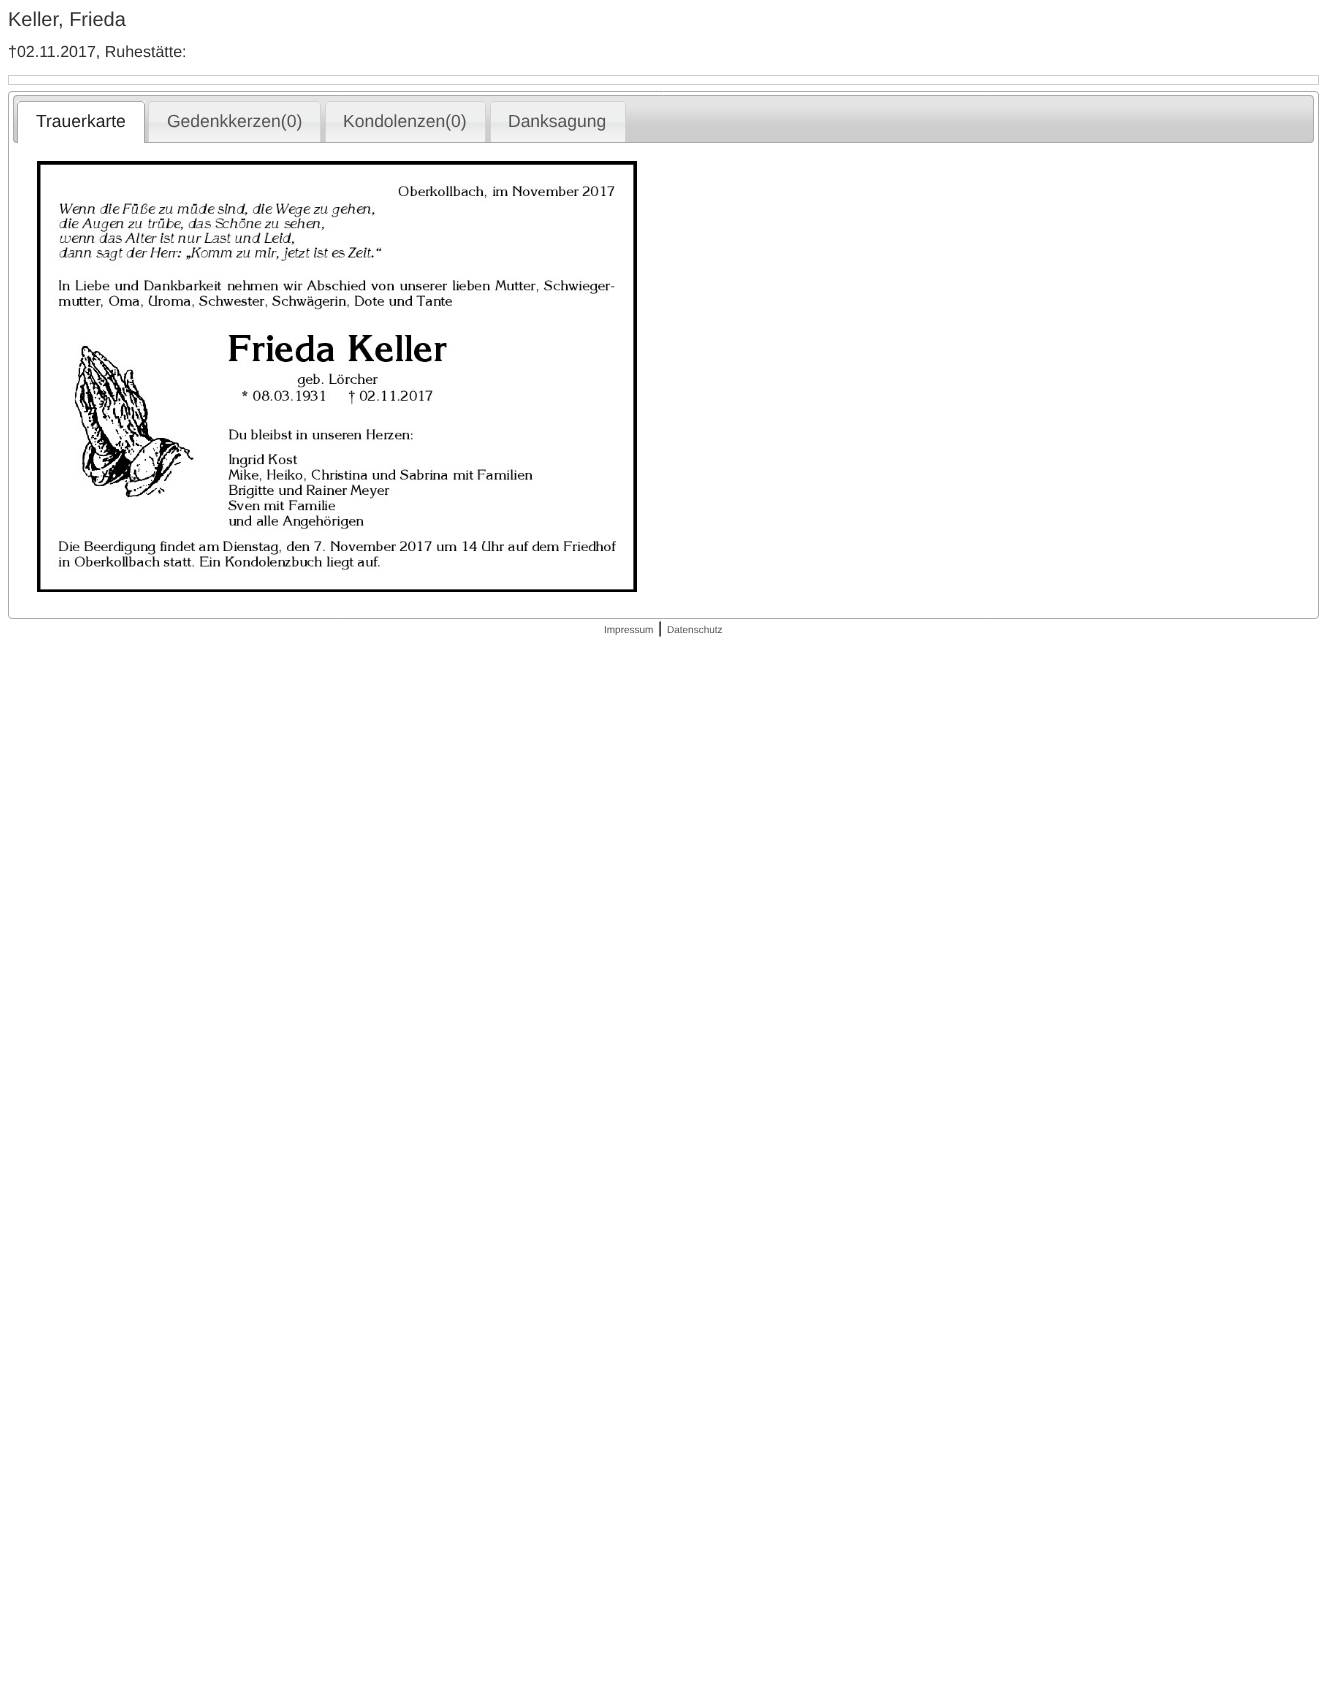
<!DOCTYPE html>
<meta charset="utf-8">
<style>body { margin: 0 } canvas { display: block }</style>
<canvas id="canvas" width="1327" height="1693"></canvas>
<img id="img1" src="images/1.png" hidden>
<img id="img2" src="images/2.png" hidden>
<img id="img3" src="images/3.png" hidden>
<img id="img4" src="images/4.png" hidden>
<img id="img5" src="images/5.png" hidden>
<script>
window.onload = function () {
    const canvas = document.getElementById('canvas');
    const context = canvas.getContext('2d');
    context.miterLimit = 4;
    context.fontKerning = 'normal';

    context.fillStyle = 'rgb(255, 255, 255)';
    context.fillRect(0, 0, 1327, 1693);
    context.strokeStyle = 'rgb(204, 204, 204)';
    context.strokeRect(8.5, 75.5, 1310, 9);
    context.beginPath();
    context.roundRect(8.5, 91.5, 1310, 527, 3.5);
    context.strokeStyle = 'rgb(170, 170, 170)';
    context.stroke();
    context.drawImage(document.getElementById('img1'), 13, 95, 1301, 48);
    context.beginPath();
    context.roundRect(13.5, 95.5, 1300, 47, 3.5);
    context.stroke();
    context.fillRect(17, 101, 128, 42);
    context.fillStyle = 'rgb(170, 170, 170)';
    context.beginPath();
    context.moveTo(21, 101);
    context.lineTo(141, 101);
    context.bezierCurveTo(143, 101, 145, 103, 145, 105);
    context.lineTo(145, 143);
    context.lineTo(17, 143);
    context.lineTo(17, 105);
    context.bezierCurveTo(17, 103, 19, 101, 21, 101);
    context.closePath();
    context.moveTo(21, 102);
    context.lineTo(141, 102);
    context.bezierCurveTo(143, 102, 144, 103, 144, 105);
    context.lineTo(144, 143);
    context.lineTo(18, 143);
    context.lineTo(18, 105);
    context.bezierCurveTo(18, 103, 19, 102, 21, 102);
    context.closePath();
    context.fill('evenodd');
    context.drawImage(document.getElementById('img2'), 148, 101, 173, 41);
    context.fillStyle = 'rgb(211, 211, 211)';
    context.beginPath();
    context.moveTo(152, 101);
    context.lineTo(317, 101);
    context.bezierCurveTo(319, 101, 321, 103, 321, 105);
    context.lineTo(321, 142);
    context.lineTo(148, 142);
    context.lineTo(148, 105);
    context.bezierCurveTo(148, 103, 150, 101, 152, 101);
    context.closePath();
    context.moveTo(152, 102);
    context.lineTo(317, 102);
    context.bezierCurveTo(319, 102, 320, 103, 320, 105);
    context.lineTo(320, 142);
    context.lineTo(149, 142);
    context.lineTo(149, 105);
    context.bezierCurveTo(149, 103, 150, 102, 152, 102);
    context.closePath();
    context.fill('evenodd');
    context.drawImage(document.getElementById('img3'), 325, 101, 161, 41);
    context.beginPath();
    context.moveTo(329, 101);
    context.lineTo(482, 101);
    context.bezierCurveTo(484, 101, 486, 103, 486, 105);
    context.lineTo(486, 142);
    context.lineTo(325, 142);
    context.lineTo(325, 105);
    context.bezierCurveTo(325, 103, 327, 101, 329, 101);
    context.closePath();
    context.moveTo(329, 102);
    context.lineTo(482, 102);
    context.bezierCurveTo(484, 102, 485, 103, 485, 105);
    context.lineTo(485, 142);
    context.lineTo(326, 142);
    context.lineTo(326, 105);
    context.bezierCurveTo(326, 103, 327, 102, 329, 102);
    context.closePath();
    context.fill('evenodd');
    context.drawImage(document.getElementById('img4'), 490, 101, 136, 41);
    context.beginPath();
    context.moveTo(494, 101);
    context.lineTo(622, 101);
    context.bezierCurveTo(624, 101, 626, 103, 626, 105);
    context.lineTo(626, 142);
    context.lineTo(490, 142);
    context.lineTo(490, 105);
    context.bezierCurveTo(490, 103, 492, 101, 494, 101);
    context.closePath();
    context.moveTo(494, 102);
    context.lineTo(622, 102);
    context.bezierCurveTo(624, 102, 625, 103, 625, 105);
    context.lineTo(625, 142);
    context.lineTo(491, 142);
    context.lineTo(491, 105);
    context.bezierCurveTo(491, 103, 492, 102, 494, 102);
    context.closePath();
    context.fill('evenodd');
    context.drawImage(document.getElementById('img5'), 37, 161, 600, 431);
    context.font = '20px Liberation Sans';
    context.fillStyle = 'rgb(51, 51, 51)';
    context.fillText('Keller, Frieda', 8, 26);
    context.font = '16px Liberation Sans';
    context.fillText('†02.11.2017, Ruhestätte:', 8, 57);
    context.font = '17.5px Liberation Sans';
    context.fillStyle = 'rgb(33, 33, 33)';
    context.fillText('Trauerkarte', 36, 127);
    context.fillStyle = 'rgb(85, 85, 85)';
    context.fillText('Gedenkkerzen(0)', 167, 127);
    context.fillText('Kondolenzen(0)', 343, 127);
    context.fillText('Danksagung', 508, 127);
    context.font = '10px Liberation Sans';
    context.fillText('Impressum', 604, 633);
    context.font = '16px Liberation Sans';
    context.fillStyle = 'rgb(0, 0, 0)';
    context.fillText('|', 658, 633);
    context.font = '10px Liberation Sans';
    context.fillStyle = 'rgb(85, 85, 85)';
    context.fillText('Datenschutz', 667, 633);
};
</script>
